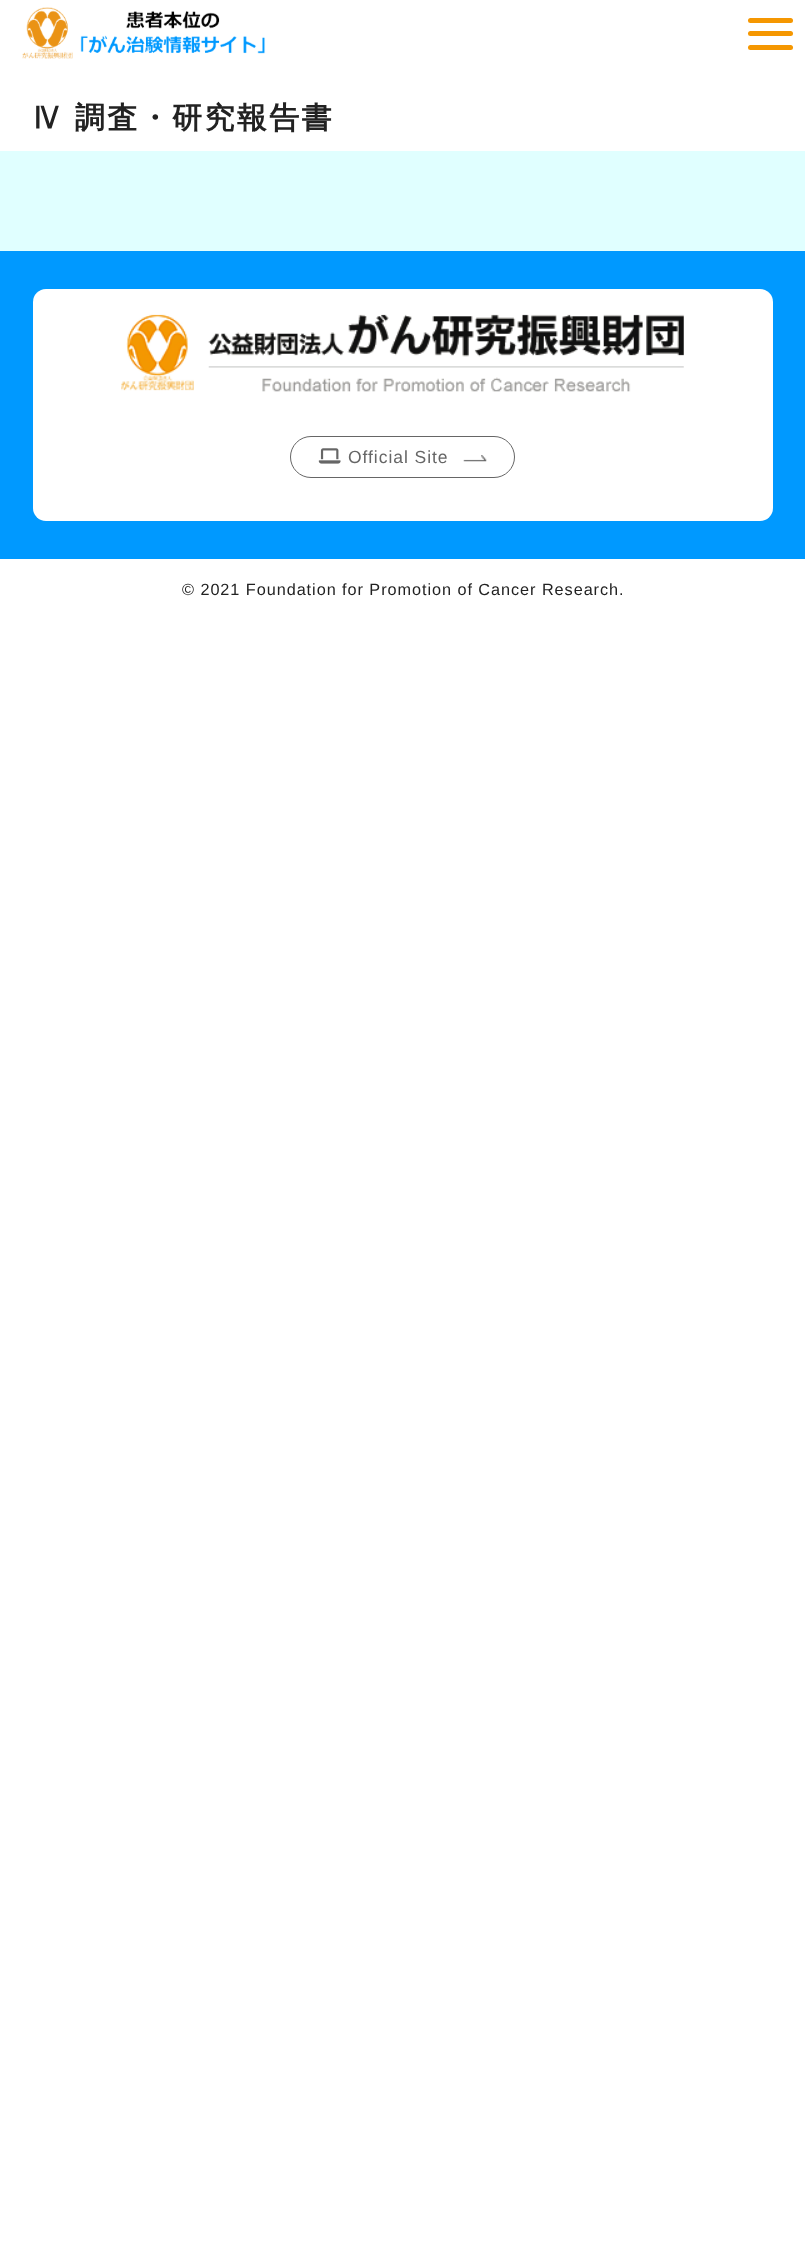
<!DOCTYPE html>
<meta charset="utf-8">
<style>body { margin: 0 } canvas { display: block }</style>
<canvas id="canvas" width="805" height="2255"></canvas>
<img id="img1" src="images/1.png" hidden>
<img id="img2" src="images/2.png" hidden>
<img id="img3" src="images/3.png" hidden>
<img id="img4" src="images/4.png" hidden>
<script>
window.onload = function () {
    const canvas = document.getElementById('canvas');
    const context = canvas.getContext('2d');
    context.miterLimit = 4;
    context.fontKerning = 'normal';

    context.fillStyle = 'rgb(255, 255, 255)';
    context.fillRect(0, 0, 805, 2255);
    context.drawImage(document.getElementById('img1'), 22, 7, 244, 52);
    context.fillStyle = 'rgb(245, 151, 1)';
    context.beginPath();
    context.roundRect(748, 18, 45, 5, 2.5);
    context.fill();
    context.beginPath();
    context.roundRect(748, 31, 45, 5, 2.5);
    context.fill();
    context.beginPath();
    context.roundRect(748, 45, 45, 5, 2.5);
    context.fill();
    context.fillStyle = 'rgb(224, 255, 255)';
    context.fillRect(0, 151, 805, 100);
    context.fillStyle = 'rgb(0, 153, 255)';
    context.fillRect(0, 251, 805, 308);
    context.fillStyle = 'rgb(255, 255, 255)';
    context.beginPath();
    context.roundRect(33, 289, 740, 232, 13);
    context.fill();
    context.drawImage(document.getElementById('img2'), 121, 314, 563, 78);
    context.beginPath();
    context.roundRect(290.5, 436.5, 224, 41, 20.5);
    context.strokeStyle = 'rgb(102, 102, 102)';
    context.stroke();
    context.drawImage(document.getElementById('img3'), 318, 448, 23, 16);
    context.drawImage(document.getElementById('img4'), 463, 455, 24, 7);
    context.letterSpacing = '2.4px';
    context.wordSpacing = '-1px';
    context.font = 'bold 30px WenQuanYi Zen Hei';
    context.fillStyle = 'rgb(34, 34, 34)';
    context.fillText('Ⅳ 調査・研究報告書', 32, 128);
    context.letterSpacing = '0.95px';
    context.wordSpacing = '0px';
    context.font = '17.5px Liberation Sans';
    context.fillStyle = 'rgb(102, 102, 102)';
    context.fillText('Official Site', 348, 463);
    context.font = '16.25px Liberation Sans';
    context.fillStyle = 'rgb(34, 34, 34)';
    context.fillText('© 2021 Foundation for Promotion of Cancer Research.', 182, 595);
};
</script>
